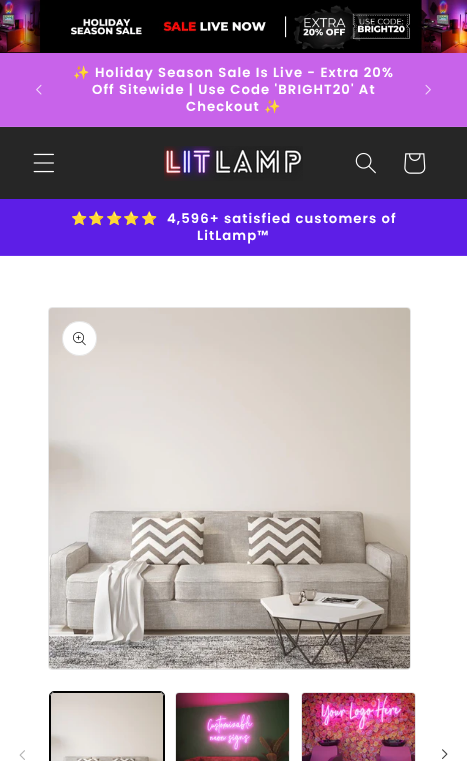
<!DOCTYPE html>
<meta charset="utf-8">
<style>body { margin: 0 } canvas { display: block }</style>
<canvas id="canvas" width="467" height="761"></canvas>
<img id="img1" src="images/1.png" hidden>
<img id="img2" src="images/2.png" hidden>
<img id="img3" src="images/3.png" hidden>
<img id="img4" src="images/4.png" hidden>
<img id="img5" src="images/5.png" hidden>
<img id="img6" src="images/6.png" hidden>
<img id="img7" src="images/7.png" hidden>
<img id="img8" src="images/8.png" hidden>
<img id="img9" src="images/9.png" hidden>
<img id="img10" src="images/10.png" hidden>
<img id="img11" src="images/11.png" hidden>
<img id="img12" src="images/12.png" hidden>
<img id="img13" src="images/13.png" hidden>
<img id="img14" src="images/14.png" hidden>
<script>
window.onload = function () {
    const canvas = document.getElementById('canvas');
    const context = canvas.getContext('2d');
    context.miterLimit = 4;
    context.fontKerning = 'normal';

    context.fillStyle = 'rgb(255, 255, 255)';
    context.fillRect(0, 0, 467, 761);
    context.drawImage(document.getElementById('img1'), 0, 0, 467, 53);
    context.fillStyle = 'rgb(200, 99, 234)';
    context.fillRect(0, 53, 467, 73);
    context.fillStyle = 'rgb(204, 111, 236)';
    context.fillRect(0, 126, 467, 1);
    context.drawImage(document.getElementById('img2'), 36, 84, 6, 11);
    context.drawImage(document.getElementById('img3'), 425, 84, 6, 11);
    context.fillStyle = 'rgb(38, 38, 38)';
    context.fillRect(0, 127, 467, 72);
    context.drawImage(document.getElementById('img4'), 33, 153, 21, 20);
    context.drawImage(document.getElementById('img5'), 164, 146, 139, 35);
    context.drawImage(document.getElementById('img6'), 355, 152, 21, 22);
    context.drawImage(document.getElementById('img7'), 404, 153, 22, 21);
    context.fillStyle = 'rgb(93, 30, 231)';
    context.fillRect(0, 199, 467, 56);
    context.fillStyle = 'rgb(106, 48, 233)';
    context.fillRect(0, 255, 467, 1);
    context.beginPath();
    context.roundRect(48.5, 307.5, 362, 362, 3.5);
    context.strokeStyle = 'rgb(230, 230, 230)';
    context.stroke();
    context.drawImage(document.getElementById('img8'), 49, 308, 361, 361);
    context.fillStyle = 'rgb(255, 255, 255)';
    context.beginPath();
    context.arc(79.5, 338.5, 17.5, 0, 2 * Math.PI);
    context.fill();
    context.beginPath();
    context.arc(79.5, 338.5, 17, 0, 2 * Math.PI);
    context.strokeStyle = 'rgba(3, 3, 3, 0.1)';
    context.stroke();
    context.drawImage(document.getElementById('img9'), 73, 332, 13, 14);
    context.drawImage(document.getElementById('img10'), 19, 750, 6, 10);
    context.beginPath();
    context.roundRect(49.5, 691.5, 115, 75, 4.5);
    context.strokeStyle = 'rgb(3, 3, 3)';
    context.stroke();
    context.beginPath();
    context.roundRect(50.5, 692.5, 113, 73, 3.5);
    context.stroke();
    context.drawImage(document.getElementById('img11'), 51, 693, 112, 68);
    context.beginPath();
    context.roundRect(175.5, 692.5, 114, 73, 3.5);
    context.strokeStyle = 'rgb(230, 230, 230)';
    context.stroke();
    context.drawImage(document.getElementById('img12'), 176, 693, 113, 68);
    context.beginPath();
    context.roundRect(301.5, 692.5, 114, 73, 3.5);
    context.stroke();
    context.drawImage(document.getElementById('img13'), 302, 693, 113, 68);
    context.drawImage(document.getElementById('img14'), 442, 749, 6, 10);
    context.letterSpacing = '1.1px';
    context.font = 'bold 13.2px Noto Color Emoji';
    context.fillText('✨', 73, 77);
    context.font = '600 13.2px Poppins';
    context.fillText('Holiday Season Sale Is Live - Extra 20%', 95, 77);
    context.fillText('Off Sitewide | Use Code \'BRIGHT20\' At', 92, 94);
    context.fillText('Checkout', 186, 111);
    context.font = 'bold 13.2px Noto Color Emoji';
    context.fillText('✨', 264, 111);
    context.fillText('⭐⭐⭐⭐⭐', 71, 223);
    context.font = '600 13.2px Poppins';
    context.fillText('4,596+ satisfied customers of', 167, 223);
    context.fillText('LitLamp™', 197, 240);
};
</script>
